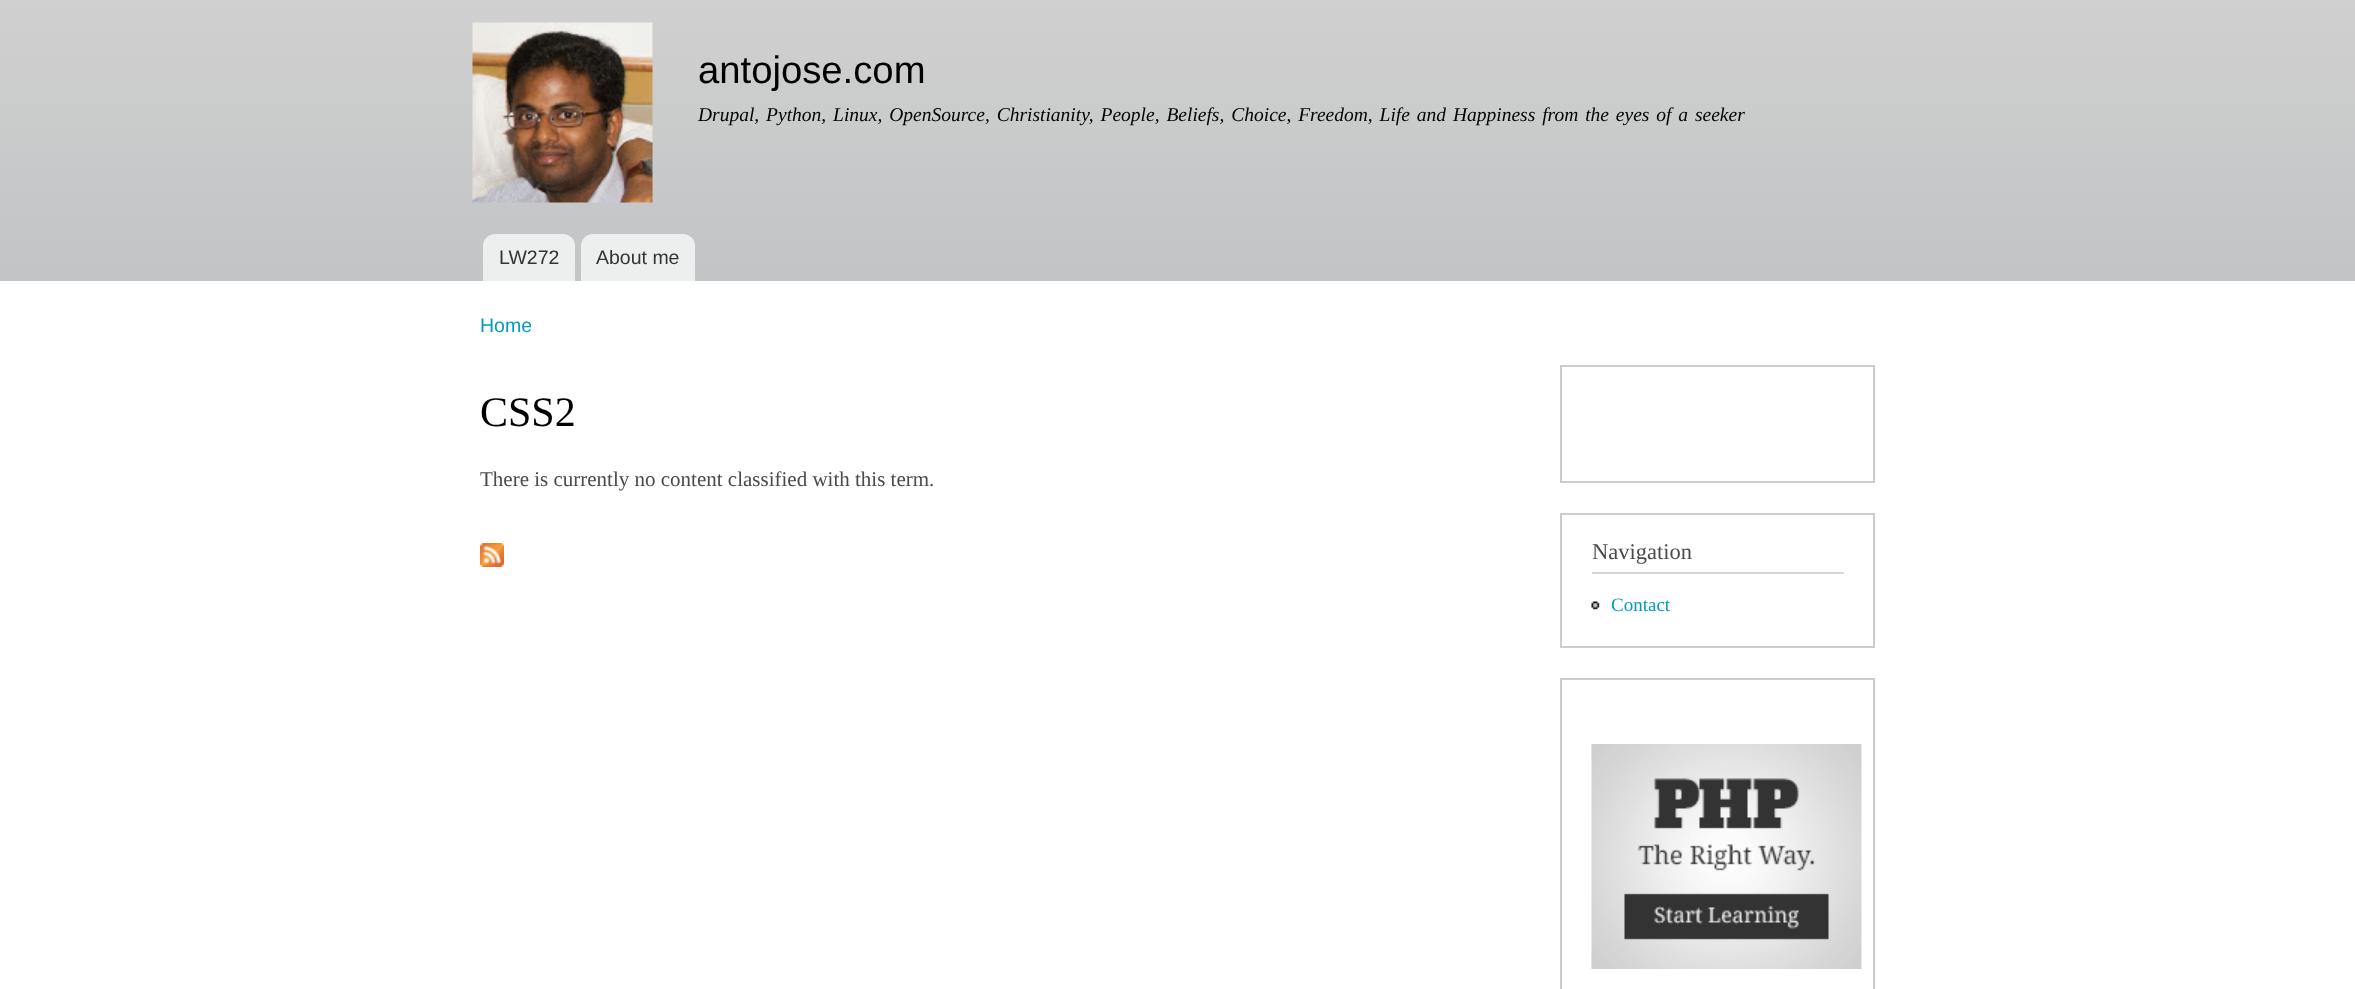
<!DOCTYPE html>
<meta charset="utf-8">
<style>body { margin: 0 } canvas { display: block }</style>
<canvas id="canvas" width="2355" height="989"></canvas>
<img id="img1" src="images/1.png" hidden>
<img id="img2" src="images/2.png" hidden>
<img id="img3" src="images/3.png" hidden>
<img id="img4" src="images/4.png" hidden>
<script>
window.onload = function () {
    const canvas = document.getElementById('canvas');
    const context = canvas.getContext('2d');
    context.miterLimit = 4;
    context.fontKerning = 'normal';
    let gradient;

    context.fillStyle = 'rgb(255, 255, 255)';
    context.fillRect(0, 0, 2355, 989);
    gradient = context.createLinearGradient(1178, 0, 1178, 281);
    gradient.addColorStop(0, 'rgb(208, 208, 208)');
    gradient.addColorStop(1, 'rgb(194, 196, 197)');
    context.fillStyle = gradient;
    context.fillRect(0, 0, 2355, 281);
    context.drawImage(document.getElementById('img1'), 472, 22, 181, 181);
    context.fillStyle = 'rgb(237, 238, 238)';
    context.beginPath();
    context.roundRect(483, 234, 92, 47, [12, 12, 0, 0]);
    context.fill();
    context.beginPath();
    context.roundRect(581, 234, 114, 47, [12, 12, 0, 0]);
    context.fill();
    context.drawImage(document.getElementById('img2'), 480, 543, 24, 24);
    context.strokeStyle = 'rgb(204, 204, 204)';
    context.lineWidth = 2;
    context.strokeRect(1561, 366, 313, 116);
    context.strokeRect(1561, 514, 313, 133);
    context.fillStyle = 'rgb(214, 214, 214)';
    context.fillRect(1592, 572, 252, 2);
    context.drawImage(document.getElementById('img3'), 1591, 601, 9, 9);
    context.strokeRect(1561, 679, 313, 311);
    context.drawImage(document.getElementById('img4'), 1591, 744, 271, 225);
    context.font = '38.25px Liberation Sans';
    context.fillStyle = 'rgb(0, 0, 0)';
    context.fillText('antojose.com', 698, 83);
    context.wordSpacing = '2px';
    context.font = 'italic 19.5px Liberation Serif';
    context.fillText('Drupal, Python, Linux, OpenSource, Christianity, People, Beliefs, Choice, Freedom, Life and Happiness from the eyes of a seeker', 698, 121);
    context.wordSpacing = '0px';
    context.font = '19.5px Liberation Sans';
    context.fillStyle = 'rgb(51, 51, 51)';
    context.fillText('LW272', 499, 264);
    context.fillText('About me', 596, 264);
    context.fillStyle = 'rgb(0, 156, 191)';
    context.fillText('Home', 480, 332);
    context.font = '42px Liberation Serif';
    context.fillStyle = 'rgb(0, 0, 0)';
    context.fillText('CSS2', 480, 426);
    context.font = '21px Liberation Serif';
    context.fillStyle = 'rgb(74, 74, 74)';
    context.fillText('There is currently no content classified with this term.', 480, 486);
    context.font = '22.5px Liberation Serif';
    context.fillText('Navigation', 1592, 559);
    context.font = '19px Liberation Serif';
    context.fillStyle = 'rgb(0, 156, 191)';
    context.fillText('Contact', 1611, 611);
};
</script>
